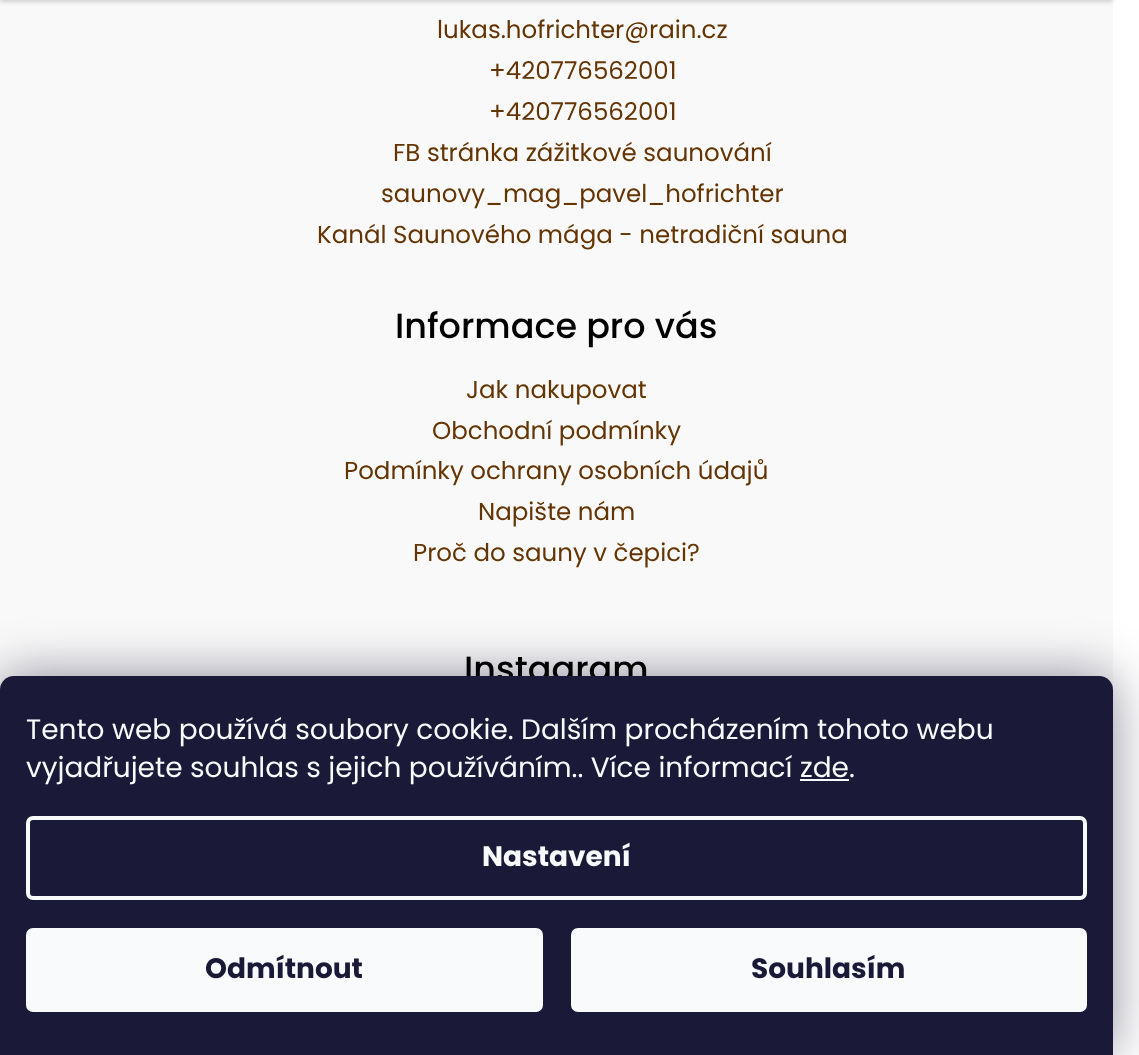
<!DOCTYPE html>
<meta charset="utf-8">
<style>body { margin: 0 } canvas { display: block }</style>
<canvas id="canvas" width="1139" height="1055"></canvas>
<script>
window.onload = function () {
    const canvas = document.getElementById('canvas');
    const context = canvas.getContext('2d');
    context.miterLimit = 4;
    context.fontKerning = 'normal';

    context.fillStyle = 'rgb(255, 255, 255)';
    context.fillRect(0, 0, 1139, 1055);
    context.fillStyle = 'rgb(249, 249, 249)';
    context.fillRect(0, 0, 1113, 690);
    context.fillStyle = 'rgba(0, 0, 0, 0.16)';
    context.filter = 'blur(2px)';
    context.beginPath();
    context.rect(0, -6, 1113, 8);
    context.fill();
    context.filter = 'none';
    context.fillStyle = 'rgba(27, 25, 57, 0.5)';
    context.filter = 'blur(26px)';
    context.beginPath();
    context.roundRect(0, 676, 1113, 379, 14);
    context.fill();
    context.filter = 'none';
    context.font = '24.5px Poppins';
    context.fillStyle = 'rgb(100, 52, 3)';
    context.fillText('lukas.hofrichter@rain.cz', 437, 38);
    context.fillText('+420776562001', 489, 79);
    context.fillText('+420776562001', 489, 120);
    context.fillText('FB stránka zážitkové saunování', 393, 161);
    context.fillText('saunovy_mag_pavel_hofrichter', 381, 202);
    context.fillText('Kanál Saunového mága - netradiční sauna', 317, 243);
    context.font = '500 35px Poppins';
    context.fillStyle = 'rgb(0, 0, 0)';
    context.fillText('Informace pro vás', 395, 338);
    context.font = '24.5px Poppins';
    context.fillStyle = 'rgb(100, 52, 3)';
    context.fillText('Jak nakupovat', 466, 398);
    context.fillText('Obchodní podmínky', 432, 439);
    context.fillText('Podmínky ochrany osobních údajů', 344, 479);
    context.fillText('Napište nám', 478, 520);
    context.fillText('Proč do sauny v čepici?', 413, 561);
    context.font = '500 35px Poppins';
    context.fillStyle = 'rgb(0, 0, 0)';
    context.fillText('Instagram', 464, 681);
    context.fillStyle = 'rgb(26, 25, 55)';
    context.beginPath();
    context.roundRect(0, 676, 1113, 379, [14, 14, 0, 0]);
    context.fill();
    context.font = '28px Poppins';
    context.fillStyle = 'rgb(248, 250, 251)';
    context.fillText('Tento web používá soubory cookie. Dalším procházením tohoto webu', 26, 739);
    context.fillText('vyjadřujete souhlas s jejich používáním.. Více informací zde.', 26, 777);
    context.fillRect(800, 779, 49, 2);
    context.beginPath();
    context.roundRect(28, 818, 1057, 80, 5);
    context.strokeStyle = 'rgb(248, 250, 251)';
    context.lineWidth = 4;
    context.stroke();
    context.font = 'bold 28px Poppins';
    context.fillText('Nastavení', 482, 866);
    context.beginPath();
    context.roundRect(26, 928, 517, 84, 7);
    context.fill();
    context.fillStyle = 'rgb(26, 25, 55)';
    context.fillText('Odmítnout', 205, 978);
    context.fillStyle = 'rgb(248, 250, 251)';
    context.beginPath();
    context.roundRect(571, 928, 516, 84, 7);
    context.fill();
    context.fillStyle = 'rgb(26, 25, 55)';
    context.fillText('Souhlasím', 751, 978);
};
</script>
